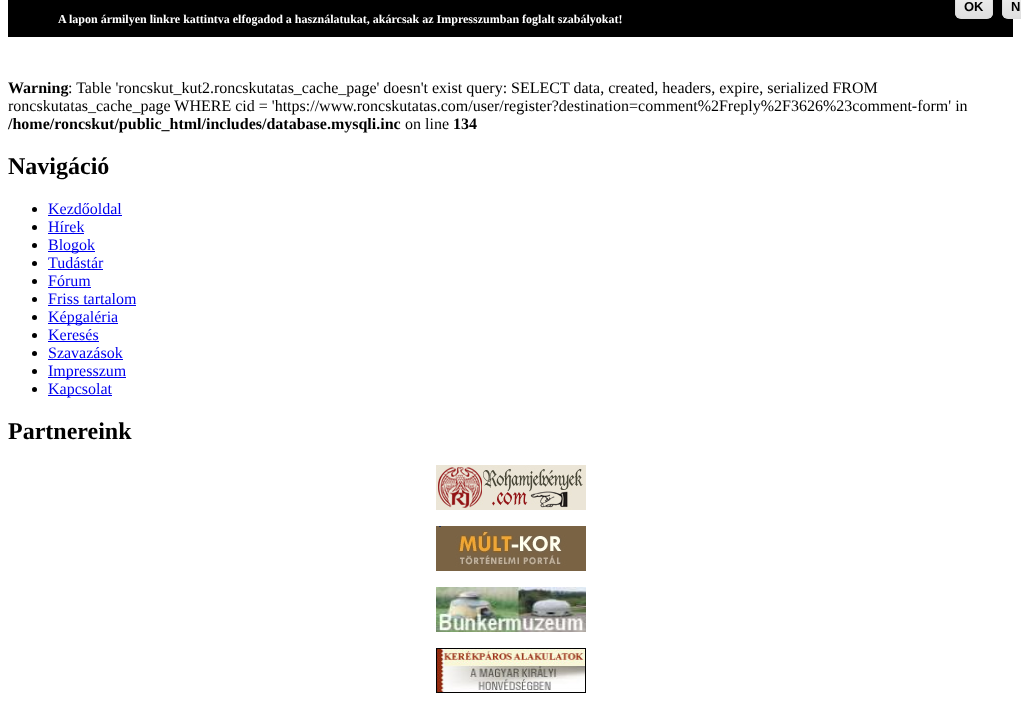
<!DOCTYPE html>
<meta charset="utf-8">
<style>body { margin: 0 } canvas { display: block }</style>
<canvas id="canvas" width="1021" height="707"></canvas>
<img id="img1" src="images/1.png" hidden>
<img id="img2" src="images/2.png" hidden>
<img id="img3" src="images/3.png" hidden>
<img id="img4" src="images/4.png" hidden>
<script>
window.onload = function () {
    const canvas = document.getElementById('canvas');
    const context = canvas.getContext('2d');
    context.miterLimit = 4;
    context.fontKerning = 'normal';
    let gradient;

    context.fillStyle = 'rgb(255, 255, 255)';
    context.fillRect(0, 0, 1021, 707);
    context.fillStyle = 'rgb(0, 0, 0)';
    context.fillRect(8, 0, 1005, 37);
    context.save();
    context.beginPath();
    context.roundRect(955, -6, 38, 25, 6);
    context.clip();
    gradient = context.createLinearGradient(956, -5, 956, 18);
    gradient.addColorStop(0.05, 'rgb(237, 237, 237)');
    gradient.addColorStop(1, 'rgb(223, 223, 223)');
    context.fillStyle = gradient;
    context.fillRect(955, 0, 38, 18);
    context.restore();
    context.beginPath();
    context.roundRect(955.5, -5.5, 37, 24, 5.5);
    context.strokeStyle = 'rgb(220, 220, 220)';
    context.stroke();
    context.save();
    context.beginPath();
    context.roundRect(1002, -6, 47, 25, 6);
    context.clip();
    gradient = context.createLinearGradient(1003, -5, 1003, 18);
    gradient.addColorStop(0.05, 'rgb(237, 237, 237)');
    gradient.addColorStop(1, 'rgb(223, 223, 223)');
    context.fillStyle = gradient;
    context.fillRect(1002, 0, 19, 18);
    context.restore();
    context.beginPath();
    context.roundRect(1002.5, -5.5, 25, 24, 5.5);
    context.stroke();
    context.beginPath();
    context.arc(34.5, 209.5, 2.5, 0, 2 * Math.PI);
    context.fill();
    context.fillStyle = 'rgb(0, 0, 238)';
    context.fillRect(48, 215, 74, 1);
    context.fillStyle = 'rgb(0, 0, 0)';
    context.beginPath();
    context.arc(34.5, 227.5, 2.5, 0, 2 * Math.PI);
    context.fill();
    context.fillStyle = 'rgb(0, 0, 238)';
    context.fillRect(48, 233, 36, 1);
    context.fillStyle = 'rgb(0, 0, 0)';
    context.beginPath();
    context.arc(34.5, 245.5, 2.5, 0, 2 * Math.PI);
    context.fill();
    context.fillStyle = 'rgb(0, 0, 238)';
    context.fillRect(48, 251, 47, 1);
    context.fillStyle = 'rgb(0, 0, 0)';
    context.beginPath();
    context.arc(34.5, 263.5, 2.5, 0, 2 * Math.PI);
    context.fill();
    context.fillStyle = 'rgb(0, 0, 238)';
    context.fillRect(48, 269, 55, 1);
    context.fillStyle = 'rgb(0, 0, 0)';
    context.beginPath();
    context.arc(34.5, 281.5, 2.5, 0, 2 * Math.PI);
    context.fill();
    context.fillStyle = 'rgb(0, 0, 238)';
    context.fillRect(48, 287, 43, 1);
    context.fillStyle = 'rgb(0, 0, 0)';
    context.beginPath();
    context.arc(34.5, 299.5, 2.5, 0, 2 * Math.PI);
    context.fill();
    context.fillStyle = 'rgb(0, 0, 238)';
    context.fillRect(48, 305, 88, 1);
    context.fillStyle = 'rgb(0, 0, 0)';
    context.beginPath();
    context.arc(34.5, 317.5, 2.5, 0, 2 * Math.PI);
    context.fill();
    context.fillStyle = 'rgb(0, 0, 238)';
    context.fillRect(48, 323, 70, 1);
    context.fillStyle = 'rgb(0, 0, 0)';
    context.beginPath();
    context.arc(34.5, 335.5, 2.5, 0, 2 * Math.PI);
    context.fill();
    context.fillStyle = 'rgb(0, 0, 238)';
    context.fillRect(48, 341, 51, 1);
    context.fillStyle = 'rgb(0, 0, 0)';
    context.beginPath();
    context.arc(34.5, 353.5, 2.5, 0, 2 * Math.PI);
    context.fill();
    context.fillStyle = 'rgb(0, 0, 238)';
    context.fillRect(48, 359, 75, 1);
    context.fillStyle = 'rgb(0, 0, 0)';
    context.beginPath();
    context.arc(34.5, 371.5, 2.5, 0, 2 * Math.PI);
    context.fill();
    context.fillStyle = 'rgb(0, 0, 238)';
    context.fillRect(48, 377, 78, 1);
    context.fillStyle = 'rgb(0, 0, 0)';
    context.beginPath();
    context.arc(34.5, 389.5, 2.5, 0, 2 * Math.PI);
    context.fill();
    context.fillStyle = 'rgb(0, 0, 238)';
    context.fillRect(48, 395, 64, 1);
    context.drawImage(document.getElementById('img1'), 436, 465, 150, 45);
    context.drawImage(document.getElementById('img2'), 436, 526, 150, 45);
    context.drawImage(document.getElementById('img3'), 436, 587, 150, 45);
    context.drawImage(document.getElementById('img4'), 436, 648, 150, 45);
    context.font = 'bold 13px Liberation Sans';
    context.fillStyle = 'rgb(0, 0, 0)';
    context.fillText('OK', 964, 11);
    context.fillText('N', 1011, 11);
    context.font = 'bold 12px Liberation Serif';
    context.fillStyle = 'rgb(255, 255, 255)';
    context.fillText('A lapon ármilyen linkre kattintva elfogadod a használatukat, akárcsak az Impresszumban foglalt szabályokat!', 58, 23);
    context.font = 'bold 16px Liberation Serif';
    context.fillStyle = 'rgb(0, 0, 0)';
    context.fillText('Warning', 8, 93);
    context.font = '16px Liberation Serif';
    context.fillText(': Table \'roncskut_kut2.roncskutatas_cache_page\' doesn\'t exist query: SELECT data, created, headers, expire, serialized FROM', 68, 93);
    context.fillText('roncskutatas_cache_page WHERE cid = \'https://www.roncskutatas.com/user/register?destination=comment%2Freply%2F3626%23comment-form\' in', 8, 111);
    context.font = 'bold 16px Liberation Serif';
    context.fillText('/home/roncskut/public_html/includes/database.mysqli.inc', 8, 129);
    context.font = '16px Liberation Serif';
    context.fillText('on line', 405, 129);
    context.font = 'bold 16px Liberation Serif';
    context.fillText('134', 453, 129);
    context.font = 'bold 24px Liberation Serif';
    context.fillText('Navigáció', 8, 174);
    context.font = '16px Liberation Serif';
    context.fillStyle = 'rgb(0, 0, 238)';
    context.fillText('Kezdőoldal', 48, 214);
    context.fillText('Hírek', 48, 232);
    context.fillText('Blogok', 48, 250);
    context.fillText('Tudástár', 48, 268);
    context.fillText('Fórum', 48, 286);
    context.fillText('Friss tartalom', 48, 304);
    context.fillText('Képgaléria', 48, 322);
    context.fillText('Keresés', 48, 340);
    context.fillText('Szavazások', 48, 358);
    context.fillText('Impresszum', 48, 376);
    context.fillText('Kapcsolat', 48, 394);
    context.font = 'bold 24px Liberation Serif';
    context.fillStyle = 'rgb(0, 0, 0)';
    context.fillText('Partnereink', 8, 439);
};
</script>
